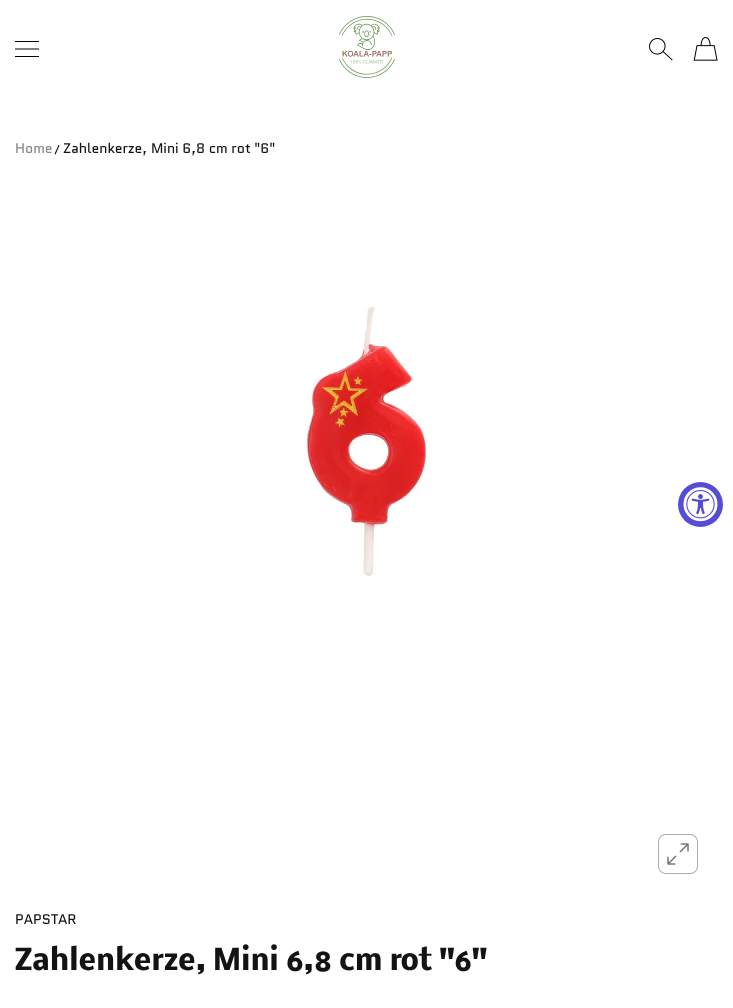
<!DOCTYPE html>
<meta charset="utf-8">
<style>body { margin: 0 } canvas { display: block }</style>
<canvas id="canvas" width="733" height="1008"></canvas>
<img id="img1" src="images/1.png" hidden>
<img id="img2" src="images/2.png" hidden>
<img id="img3" src="images/3.png" hidden>
<img id="img4" src="images/4.png" hidden>
<img id="img5" src="images/5.png" hidden>
<img id="img6" src="images/6.png" hidden>
<script>
window.onload = function () {
    const canvas = document.getElementById('canvas');
    const context = canvas.getContext('2d');
    context.miterLimit = 4;
    context.fontKerning = 'normal';

    context.fillStyle = 'rgb(255, 255, 255)';
    context.fillRect(0, 0, 733, 1008);
    context.fillStyle = 'rgb(0, 0, 0)';
    context.fillRect(15, 41, 24, 1);
    context.beginPath();
    context.moveTo(15, 49);
    context.lineTo(39, 49);
    context.strokeStyle = 'rgb(0, 0, 0)';
    context.stroke();
    context.fillRect(15, 56, 24, 1);
    context.drawImage(document.getElementById('img1'), 339, 16, 56, 62);
    context.drawImage(document.getElementById('img2'), 649, 38, 24, 23);
    context.drawImage(document.getElementById('img3'), 693, 37, 25, 24);
    context.fillStyle = 'rgb(19, 19, 19)';
    context.beginPath();
    context.moveTo(58.5, 145);
    context.lineTo(59.5, 145.5);
    context.lineTo(55.5, 154.5);
    context.lineTo(54.5, 154);
    context.closePath();
    context.fill();
    context.drawImage(document.getElementById('img4'), 306, 307, 123, 269);
    context.drawImage(document.getElementById('img5'), 658, 834, 40, 40);
    context.fillStyle = 'rgb(87, 76, 213)';
    context.beginPath();
    context.arc(700.5, 504.5, 22.5, 0, 2 * Math.PI);
    context.fill();
    context.drawImage(document.getElementById('img6'), 683, 487, 35, 35);
    context.font = '14px Quantico';
    context.fillStyle = 'rgb(137, 137, 137)';
    context.fillText('Home', 15, 153);
    context.fillStyle = 'rgb(19, 19, 19)';
    context.fillText('Zahlenkerze, Mini 6,8 cm rot "6"', 63, 153);
    context.fillText('PAPSTAR', 15, 924);
    context.font = 'bold 28px Nobile';
    context.fillText('Zahlenkerze, Mini 6,8 cm rot "6"', 15, 970);
};
</script>
